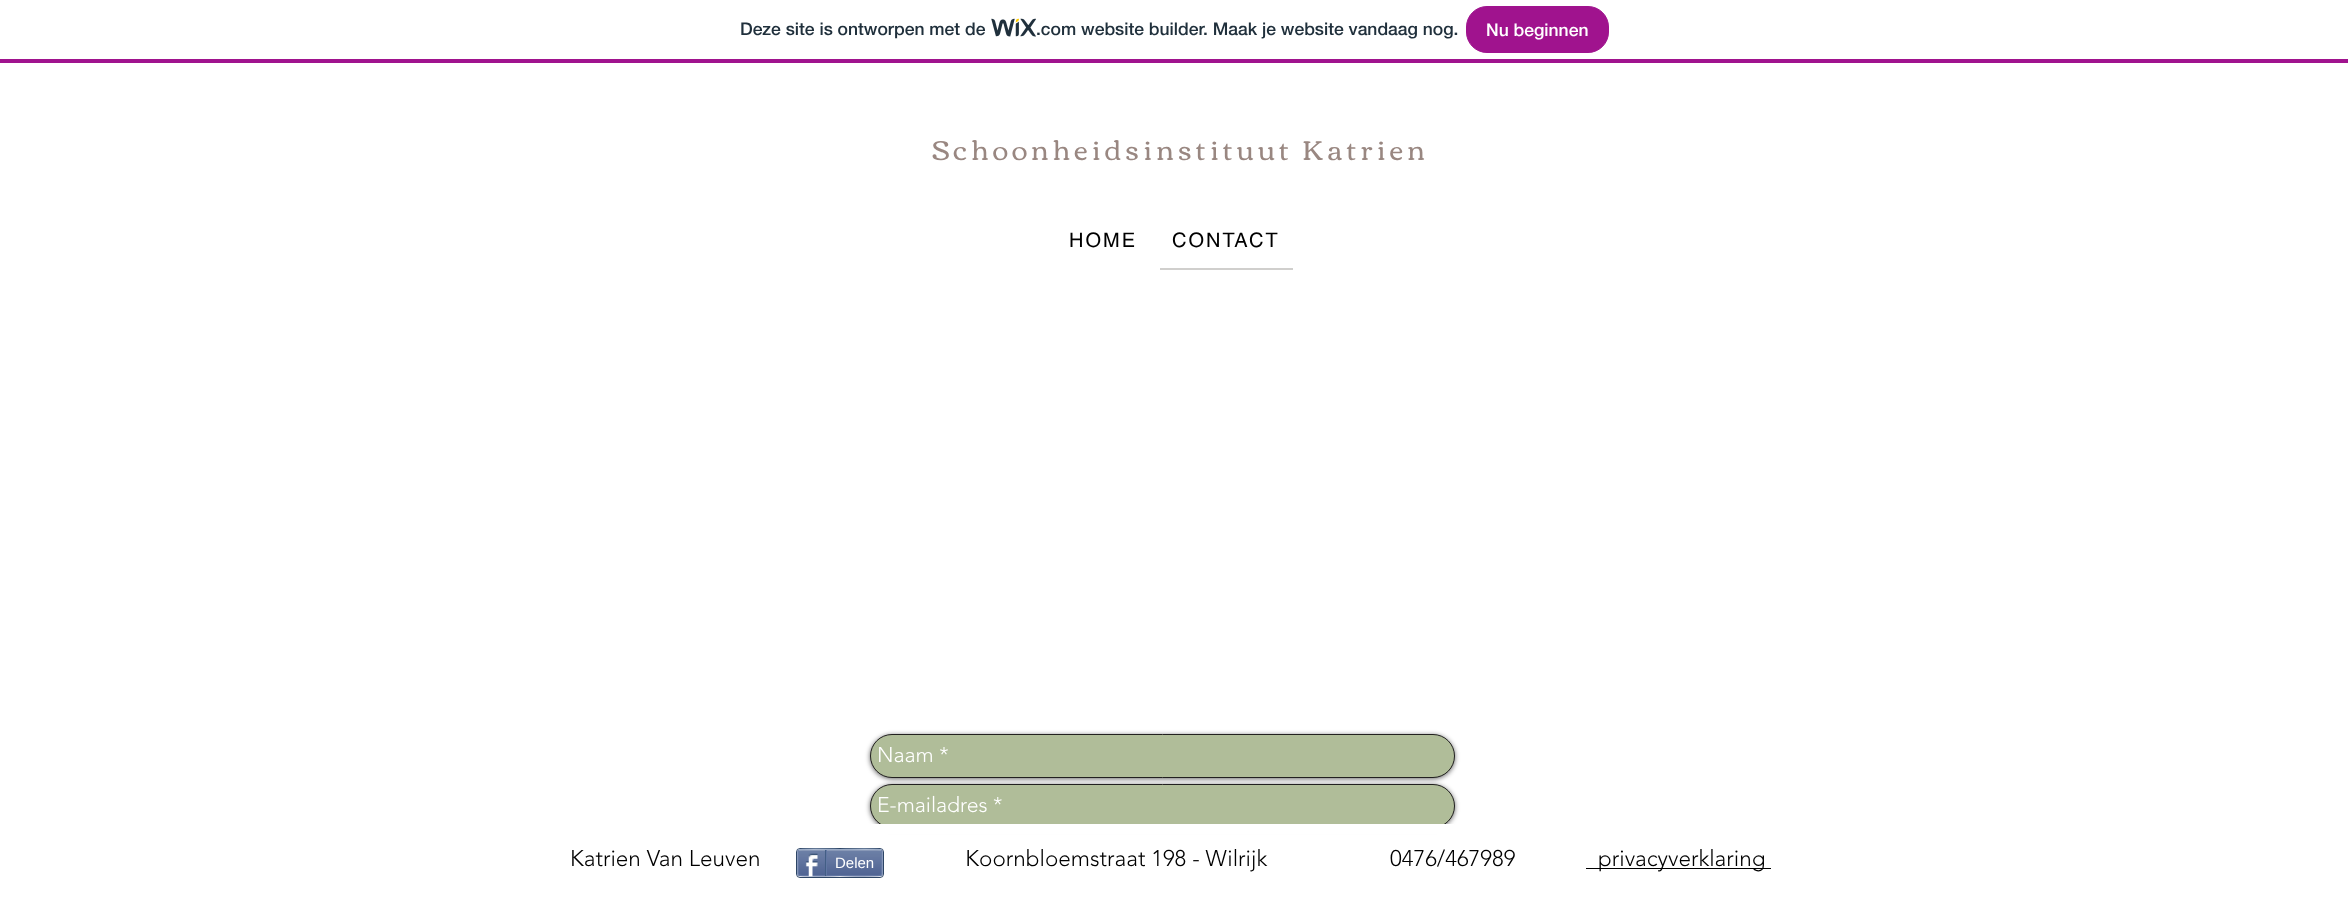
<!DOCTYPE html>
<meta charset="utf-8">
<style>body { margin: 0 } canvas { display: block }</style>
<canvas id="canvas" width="2348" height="901"></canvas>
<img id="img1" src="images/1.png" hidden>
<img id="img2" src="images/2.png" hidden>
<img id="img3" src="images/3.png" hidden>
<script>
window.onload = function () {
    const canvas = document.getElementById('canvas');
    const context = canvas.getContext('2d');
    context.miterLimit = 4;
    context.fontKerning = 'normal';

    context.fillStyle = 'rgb(255, 255, 255)';
    context.fillRect(0, 0, 2348, 901);
    context.fillStyle = 'rgb(160, 19, 142)';
    context.fillRect(0, 59, 2348, 4);
    context.drawImage(document.getElementById('img1'), 991, 18, 45, 19);
    context.beginPath();
    context.roundRect(1466.5, 6.5, 142, 46, 20.5);
    context.fill();
    context.strokeStyle = 'rgb(160, 19, 142)';
    context.stroke();
    context.fillStyle = 'rgb(208, 207, 205)';
    context.fillRect(1160, 268, 133, 2);
    context.fillStyle = 'rgba(0, 0, 0, 0.6)';
    context.filter = 'blur(2.5px)';
    context.beginPath();
    context.roundRect(870, 735, 585, 44, 22);
    context.fill();
    context.filter = 'none';
    context.fillStyle = 'rgb(176, 189, 153)';
    context.beginPath();
    context.roundRect(870.5, 734.5, 584, 43, 21.5);
    context.fill();
    context.strokeStyle = 'rgb(34, 33, 32)';
    context.stroke();
    context.fillStyle = 'rgba(0, 0, 0, 0.6)';
    context.filter = 'blur(2.5px)';
    context.beginPath();
    context.roundRect(870, 785, 585, 44, 22);
    context.fill();
    context.filter = 'none';
    context.fillStyle = 'rgb(176, 189, 153)';
    context.beginPath();
    context.roundRect(870.5, 784.5, 584, 43, 21.5);
    context.fill();
    context.stroke();
    context.fillStyle = 'rgb(255, 255, 255)';
    context.fillRect(871, 824, 583, 10);
    context.fillStyle = 'rgb(0, 0, 0)';
    context.fillRect(1586, 868, 185, 1);
    context.beginPath();
    context.roundRect(796.5, 848.5, 87, 29, 3.5);
    context.strokeStyle = 'rgb(45, 69, 101)';
    context.stroke();
    context.drawImage(document.getElementById('img2'), 797, 849, 86, 28);
    context.beginPath();
    context.moveTo(798.5, 850);
    context.bezierCurveTo(800.5, 848.5, 835.5, 849.5, 840, 849.5);
    context.bezierCurveTo(844.5, 849.5, 879.5, 848.5, 881.5, 850);
    context.strokeStyle = 'rgb(154, 171, 198)';
    context.lineWidth = 1.2;
    context.stroke();
    context.beginPath();
    context.moveTo(881.5, 850);
    context.lineTo(882, 851);
    context.lineTo(882, 874);
    context.lineTo(881.5, 875);
    context.strokeStyle = 'rgb(111, 131, 173)';
    context.stroke();
    context.beginPath();
    context.moveTo(881.5, 875);
    context.bezierCurveTo(879.5, 876.5, 844.5, 875.5, 840, 875.5);
    context.bezierCurveTo(835.5, 875.5, 800.5, 876.5, 798.5, 875);
    context.strokeStyle = 'rgb(97, 118, 163)';
    context.stroke();
    context.beginPath();
    context.moveTo(798.5, 875);
    context.lineTo(798, 874);
    context.lineTo(798, 851);
    context.lineTo(798.5, 850);
    context.strokeStyle = 'rgb(111, 131, 173)';
    context.stroke();
    context.drawImage(document.getElementById('img3'), 805, 853, 13, 24);
    context.fillStyle = 'rgb(66, 94, 133)';
    context.fillRect(825, 850, 1, 26);
    context.fillStyle = 'rgb(97, 118, 163)';
    context.fillRect(826, 850, 1, 25);
    context.font = '500 17.5px "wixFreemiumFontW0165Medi"';
    context.fillStyle = 'rgb(32, 48, 60)';
    context.fillText('Deze site is ontworpen met de', 740, 35);
    context.fillText('.com website builder. Maak je website vandaag nog.', 1036, 35);
    context.fillStyle = 'rgb(255, 255, 255)';
    context.fillText('Nu beginnen', 1486, 36);
    context.letterSpacing = '4.1px';
    context.font = '27.5px Corben';
    context.fillStyle = 'rgb(153, 135, 129)';
    context.fillText('Schoonheidsinstituut Katrien', 932, 160);
    context.letterSpacing = '2px';
    context.font = '20px helvetica';
    context.fillStyle = 'rgb(0, 0, 0)';
    context.fillText('HOME', 1069, 247);
    context.fillText('CONTACT', 1172, 247);
    context.letterSpacing = '0px';
    context.font = '300 21.25px "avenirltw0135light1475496"';
    context.fillStyle = 'rgb(255, 255, 255)';
    context.fillText('Naam *', 877, 762);
    context.fillText('E-mailadres *', 877, 812);
    context.font = '300 22.5px "avenirltw0135light1475496"';
    context.fillStyle = 'rgb(0, 0, 0)';
    context.fillText('privacyverklaring', 1598, 866);
    context.font = '15px Liberation Sans';
    context.fillStyle = 'rgb(255, 255, 255)';
    context.fillText('Delen', 835, 868);
    context.font = '300 22.5px "avenirltw0135light1475496"';
    context.fillStyle = 'rgb(0, 0, 0)';
    context.fillText('Katrien Van Leuven                                   Koornbloemstraat 198 - Wilrijk                     0476/467989', 570, 866);
};
</script>
